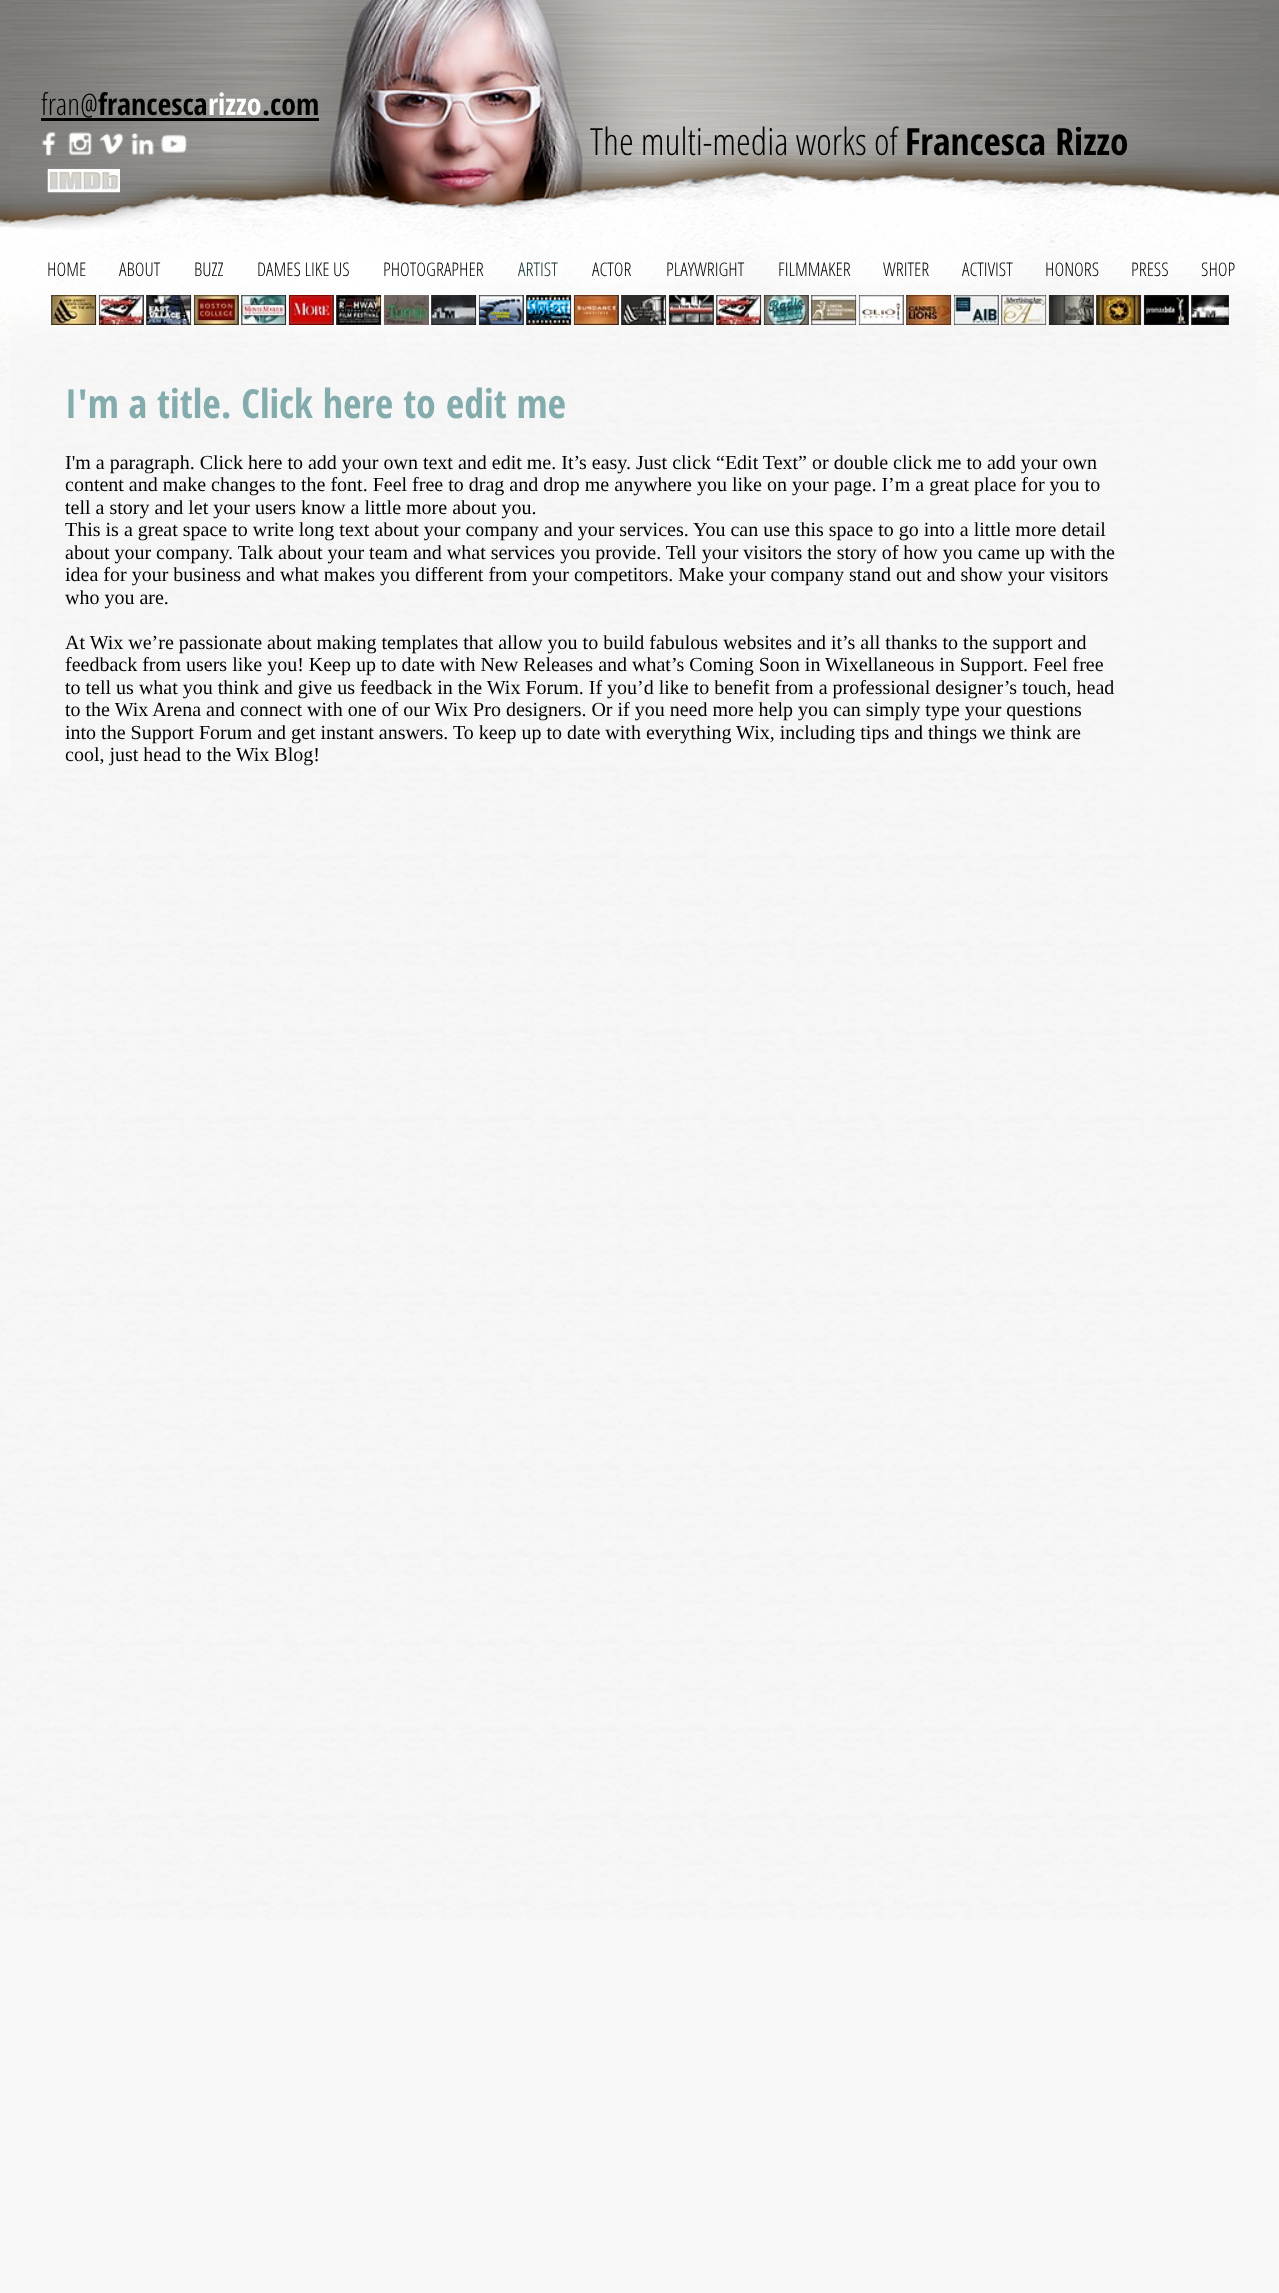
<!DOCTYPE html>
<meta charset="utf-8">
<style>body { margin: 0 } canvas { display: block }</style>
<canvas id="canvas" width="1279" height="2293"></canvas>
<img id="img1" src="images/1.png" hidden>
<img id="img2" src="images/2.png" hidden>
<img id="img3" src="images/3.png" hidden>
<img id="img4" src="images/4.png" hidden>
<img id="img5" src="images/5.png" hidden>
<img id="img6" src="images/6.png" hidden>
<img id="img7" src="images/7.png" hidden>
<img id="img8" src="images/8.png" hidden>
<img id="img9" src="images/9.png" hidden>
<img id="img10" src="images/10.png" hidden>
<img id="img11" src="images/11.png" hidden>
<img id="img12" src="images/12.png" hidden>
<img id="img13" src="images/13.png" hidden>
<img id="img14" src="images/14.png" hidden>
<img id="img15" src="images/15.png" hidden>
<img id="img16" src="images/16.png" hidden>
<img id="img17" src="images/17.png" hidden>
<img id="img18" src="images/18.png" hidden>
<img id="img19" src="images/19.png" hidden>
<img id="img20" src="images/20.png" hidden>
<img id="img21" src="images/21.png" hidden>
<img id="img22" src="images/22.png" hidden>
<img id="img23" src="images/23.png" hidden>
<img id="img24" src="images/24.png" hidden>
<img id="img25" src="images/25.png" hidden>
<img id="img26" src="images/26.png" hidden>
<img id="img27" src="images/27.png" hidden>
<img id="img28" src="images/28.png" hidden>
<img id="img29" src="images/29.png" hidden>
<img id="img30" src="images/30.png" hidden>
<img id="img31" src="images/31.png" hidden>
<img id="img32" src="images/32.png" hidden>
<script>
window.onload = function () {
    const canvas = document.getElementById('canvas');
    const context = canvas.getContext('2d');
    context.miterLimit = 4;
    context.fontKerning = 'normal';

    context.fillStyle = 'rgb(248, 248, 248)';
    context.fillRect(0, 0, 1279, 2293);
    context.drawImage(document.getElementById('img1'), 0, 0, 1279, 1920);
    context.fillStyle = 'rgb(0, 0, 0)';
    context.fillRect(41, 118, 278, 3);
    context.drawImage(document.getElementById('img2'), 42, 131, 14, 25);
    context.drawImage(document.getElementById('img3'), 68, 132, 24, 24);
    context.drawImage(document.getElementById('img4'), 99, 133, 25, 21);
    context.drawImage(document.getElementById('img5'), 131, 132, 23, 24);
    context.drawImage(document.getElementById('img6'), 161, 134, 26, 19);
    context.drawImage(document.getElementById('img7'), 47, 168, 73, 25);
    context.fillStyle = 'rgb(99, 99, 99)';
    context.fillRect(51, 295, 1, 30);
    context.drawImage(document.getElementById('img8'), 51, 295, 46, 30);
    context.fillRect(143, 295, 1, 30);
    context.drawImage(document.getElementById('img9'), 98, 295, 46, 30);
    context.fillRect(146, 295, 1, 30);
    context.drawImage(document.getElementById('img10'), 146, 295, 46, 30);
    context.fillRect(238, 295, 1, 30);
    context.drawImage(document.getElementById('img11'), 193, 295, 46, 30);
    context.fillRect(241, 295, 1, 30);
    context.drawImage(document.getElementById('img12'), 241, 295, 46, 30);
    context.fillRect(333, 295, 1, 30);
    context.drawImage(document.getElementById('img13'), 288, 295, 46, 30);
    context.fillRect(336, 295, 1, 30);
    context.drawImage(document.getElementById('img14'), 336, 295, 46, 30);
    context.fillRect(428, 295, 1, 30);
    context.drawImage(document.getElementById('img15'), 383, 295, 46, 30);
    context.fillRect(431, 295, 1, 30);
    context.drawImage(document.getElementById('img16'), 431, 295, 46, 30);
    context.fillRect(523, 295, 1, 30);
    context.drawImage(document.getElementById('img17'), 478, 295, 46, 30);
    context.fillRect(526, 295, 1, 30);
    context.drawImage(document.getElementById('img18'), 526, 295, 46, 30);
    context.fillRect(618, 295, 1, 30);
    context.drawImage(document.getElementById('img19'), 573, 295, 46, 30);
    context.fillRect(621, 295, 1, 30);
    context.drawImage(document.getElementById('img20'), 621, 295, 46, 30);
    context.fillRect(713, 295, 1, 30);
    context.drawImage(document.getElementById('img21'), 668, 295, 46, 30);
    context.fillRect(716, 295, 1, 30);
    context.drawImage(document.getElementById('img22'), 716, 295, 46, 30);
    context.fillRect(808, 295, 1, 30);
    context.drawImage(document.getElementById('img23'), 763, 295, 46, 30);
    context.fillRect(811, 295, 1, 30);
    context.drawImage(document.getElementById('img24'), 811, 295, 46, 30);
    context.fillRect(903, 295, 1, 30);
    context.drawImage(document.getElementById('img25'), 858, 295, 46, 30);
    context.fillRect(906, 295, 1, 30);
    context.drawImage(document.getElementById('img26'), 906, 295, 46, 30);
    context.fillRect(998, 295, 1, 30);
    context.drawImage(document.getElementById('img27'), 953, 295, 46, 30);
    context.fillRect(1001, 295, 1, 30);
    context.drawImage(document.getElementById('img28'), 1001, 295, 46, 30);
    context.fillRect(1093, 295, 1, 30);
    context.drawImage(document.getElementById('img29'), 1048, 295, 46, 30);
    context.fillRect(1096, 295, 1, 30);
    context.drawImage(document.getElementById('img30'), 1096, 295, 46, 30);
    context.fillRect(1188, 295, 1, 30);
    context.drawImage(document.getElementById('img31'), 1143, 295, 46, 30);
    context.fillRect(1191, 295, 38, 30);
    context.drawImage(document.getElementById('img32'), 1191, 295, 38, 30);
    context.font = '300 30px Open Sans Condensed';
    context.fillStyle = 'rgb(0, 0, 0)';
    context.fillText('fran@', 41, 115);
    context.font = 'bold 30px Open Sans Condensed';
    context.fillText('francesca', 98, 115);
    context.fillStyle = 'rgb(255, 255, 255)';
    context.fillText('rizzo', 208, 115);
    context.fillStyle = 'rgb(0, 0, 0)';
    context.fillText('.com', 262, 115);
    context.font = '300 37.5px Open Sans Condensed';
    context.fillText('The multi-media works of', 590, 155);
    context.font = 'bold 37.5px Open Sans Condensed';
    context.fillText('Francesca Rizzo', 905, 155);
    context.font = '300 18.75px Open Sans Condensed';
    context.fillText('HOME', 47, 276);
    context.fillText('ABOUT', 119, 276);
    context.fillText('BUZZ', 194, 276);
    context.fillText('DAMES LIKE US', 257, 276);
    context.fillText('PHOTOGRAPHER', 383, 276);
    context.fillStyle = 'rgb(13, 44, 44)';
    context.fillText('ARTIST', 518, 276);
    context.fillStyle = 'rgb(0, 0, 0)';
    context.fillText('ACTOR', 592, 276);
    context.fillText('PLAYWRIGHT', 666, 276);
    context.fillText('FILMMAKER', 778, 276);
    context.fillText('WRITER', 883, 276);
    context.fillText('ACTIVIST', 962, 276);
    context.fillText('HONORS', 1045, 276);
    context.fillText('PRESS', 1131, 276);
    context.fillText('SHOP', 1201, 276);
    context.font = 'bold 40px Open Sans Condensed';
    context.fillStyle = 'rgb(132, 172, 172)';
    context.fillText('I\'m a title. Click here to edit me', 65, 418);
    context.font = '20px Liberation Serif';
    context.fillStyle = 'rgb(0, 0, 0)';
    context.fillText('I\'m a paragraph. Click here to add your own text and edit me. It’s easy. Just click “Edit Text” or double click me to add your own', 65, 469);
    context.fillText('content and make changes to the font. Feel free to drag and drop me anywhere you like on your page. I’m a great place for you to', 65, 491);
    context.fillText('tell a story and let your users know a little more about you.', 65, 514);
    context.fillText('This is a great space to write long text about your company and your services. You can use this space to go into a little more detail', 65, 536);
    context.fillText('about your company. Talk about your team and what services you provide. Tell your visitors the story of how you came up with the', 65, 559);
    context.fillText('idea for your business and what makes you different from your competitors. Make your company stand out and show your visitors', 65, 581);
    context.fillText('who you are.', 65, 604);
    context.fillText('At Wix we’re passionate about making templates that allow you to build fabulous websites and it’s all thanks to the support and', 65, 649);
    context.fillText('feedback from users like you! Keep up to date with New Releases and what’s Coming Soon in Wixellaneous in Support. Feel free', 65, 671);
    context.fillText('to tell us what you think and give us feedback in the Wix Forum. If you’d like to benefit from a professional designer’s touch, head', 65, 694);
    context.fillText('to the Wix Arena and connect with one of our Wix Pro designers. Or if you need more help you can simply type your questions', 65, 716);
    context.fillText('into the Support Forum and get instant answers. To keep up to date with everything Wix, including tips and things we think are', 65, 739);
    context.fillText('cool, just head to the Wix Blog!', 65, 761);
};
</script>
